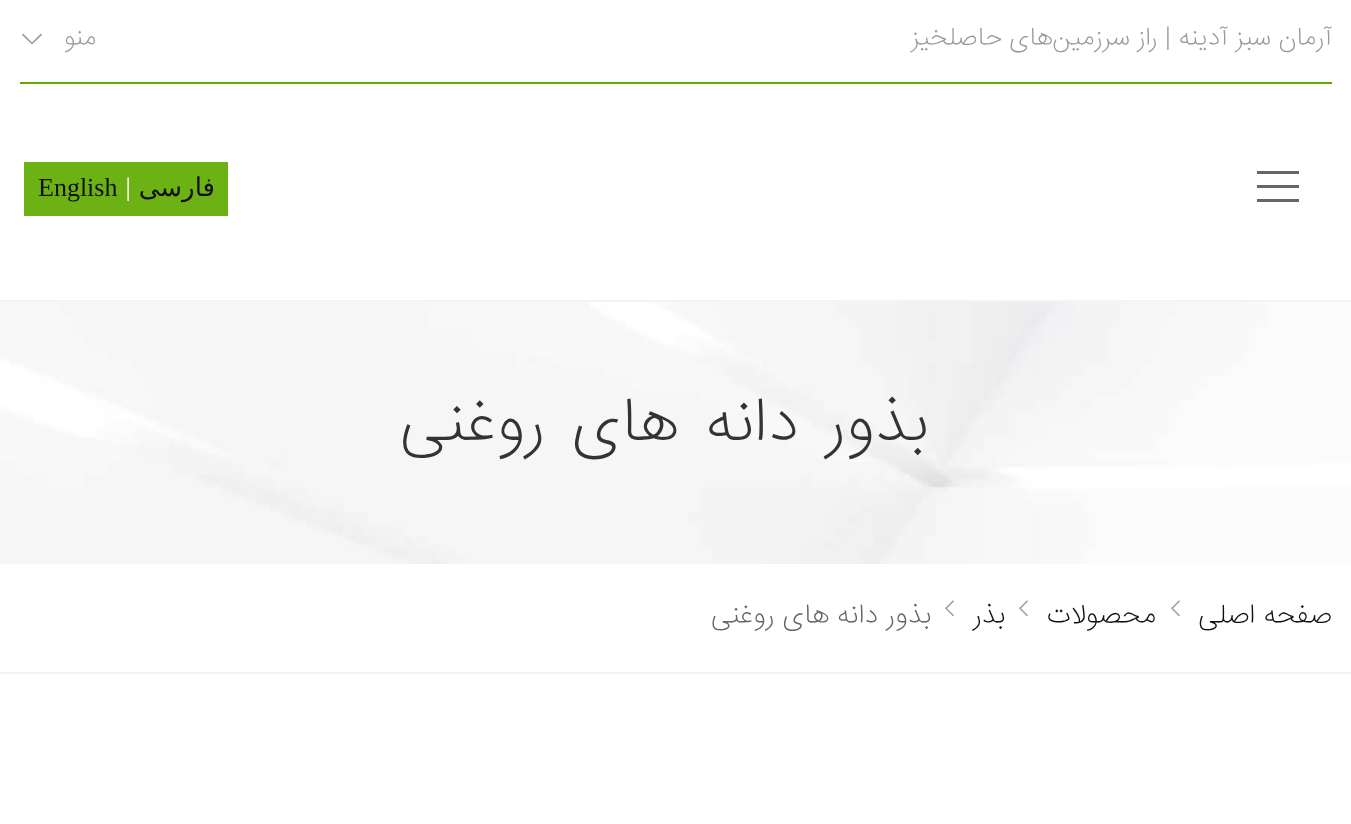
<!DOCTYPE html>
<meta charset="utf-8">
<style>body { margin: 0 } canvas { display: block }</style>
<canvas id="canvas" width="1351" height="824"></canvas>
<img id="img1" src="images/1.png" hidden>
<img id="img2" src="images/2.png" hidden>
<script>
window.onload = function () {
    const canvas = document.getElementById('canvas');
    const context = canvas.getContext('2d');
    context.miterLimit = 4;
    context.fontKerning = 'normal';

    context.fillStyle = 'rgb(255, 255, 255)';
    context.fillRect(0, 0, 1351, 824);
    context.fillStyle = 'rgb(153, 153, 153)';
    context.beginPath();
    context.moveTo(23, 33.5);
    context.lineTo(32, 42.5);
    context.lineTo(41, 33.5);
    context.lineTo(42, 35);
    context.lineTo(32, 44.5);
    context.lineTo(22, 35);
    context.closePath();
    context.fill();
    context.fillStyle = 'rgb(97, 171, 0)';
    context.fillRect(20, 82, 1312, 2);
    context.fillStyle = 'rgb(244, 244, 244)';
    context.fillRect(0, 300, 1351, 2);
    context.fillStyle = 'rgb(102, 102, 102)';
    context.beginPath();
    context.moveTo(1257, 171);
    context.lineTo(1299, 171);
    context.lineTo(1299, 174);
    context.lineTo(1257, 174);
    context.closePath();
    context.moveTo(1257, 185);
    context.lineTo(1299, 185);
    context.lineTo(1299, 188);
    context.lineTo(1257, 188);
    context.closePath();
    context.moveTo(1257, 199);
    context.lineTo(1299, 199);
    context.lineTo(1299, 202);
    context.lineTo(1257, 202);
    context.closePath();
    context.fill();
    context.fillStyle = 'rgb(109, 178, 20)';
    context.fillRect(24, 162, 204, 54);
    context.drawImage(document.getElementById('img1'), 0, 302, 1351, 262);
    context.fillStyle = 'rgb(244, 244, 244)';
    context.fillRect(0, 672, 1351, 2);
    context.drawImage(document.getElementById('img2'), 1171, 600, 9, 17);
    context.drawImage(document.getElementById('img2'), 1019, 600, 9, 17);
    context.drawImage(document.getElementById('img2'), 945, 600, 9, 17);
    context.direction = 'rtl';
    context.font = '200 26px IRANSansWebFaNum';
    context.fillStyle = 'rgb(153, 153, 153)';
    context.fillText('آرمان سبز آدینه | راز سرزمین‌های حاصلخیز', 1332, 45);
    context.fillText('منو', 96, 45);
    context.font = '26px DejaVu Sans';
    context.fillStyle = 'rgb(17, 17, 17)';
    context.fillText('فارسی', 215, 196);
    context.direction = 'ltr';
    context.font = '200 26px IRANSansWebFaNum';
    context.fillStyle = 'rgb(255, 255, 255)';
    context.fillText('|', 125, 196);
    context.font = '26px Liberation Serif';
    context.fillStyle = 'rgb(17, 17, 17)';
    context.fillText('English', 38, 196);
    context.letterSpacing = '-1.6px';
    context.wordSpacing = '10px';
    context.direction = 'rtl';
    context.font = '200 64px IRANSansWebFaNum';
    context.fillStyle = 'rgb(51, 51, 51)';
    context.fillText('بذور دانه های روغنی', 928, 441);
    context.letterSpacing = '0px';
    context.wordSpacing = '0px';
    context.font = '200 28px IRANSansWebFaNum';
    context.fillStyle = 'rgb(17, 17, 17)';
    context.fillText('صفحه اصلی', 1332, 623);
    context.fillText('محصولات', 1156, 623);
    context.fillText('بذر', 1005, 623);
    context.fillStyle = 'rgb(102, 102, 102)';
    context.fillText('بذور دانه های روغنی', 931, 623);
};
</script>
